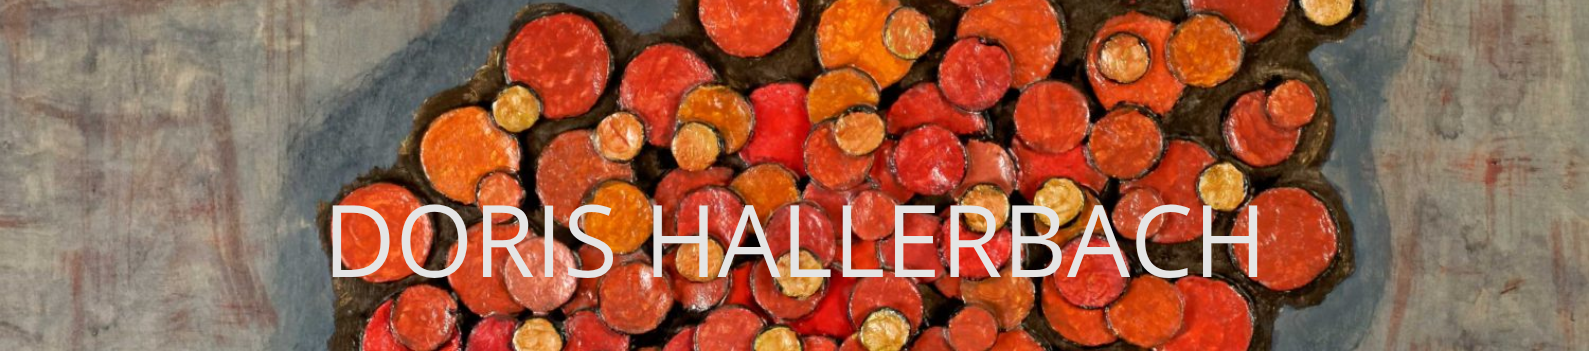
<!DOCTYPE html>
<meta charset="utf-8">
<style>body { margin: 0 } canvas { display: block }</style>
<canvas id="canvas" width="1589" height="351"></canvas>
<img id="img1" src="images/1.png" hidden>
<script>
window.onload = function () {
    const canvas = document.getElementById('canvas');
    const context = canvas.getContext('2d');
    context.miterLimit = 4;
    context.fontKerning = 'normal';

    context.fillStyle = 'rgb(255, 255, 255)';
    context.fillRect(0, 0, 1589, 351);
    context.drawImage(document.getElementById('img1'), 0, 0, 1589, 351);
    context.font = '100px Open Sans';
    context.fillStyle = 'rgb(229, 229, 229)';
    context.fillText('DORIS HALLERBACH', 323, 277);
};
</script>
